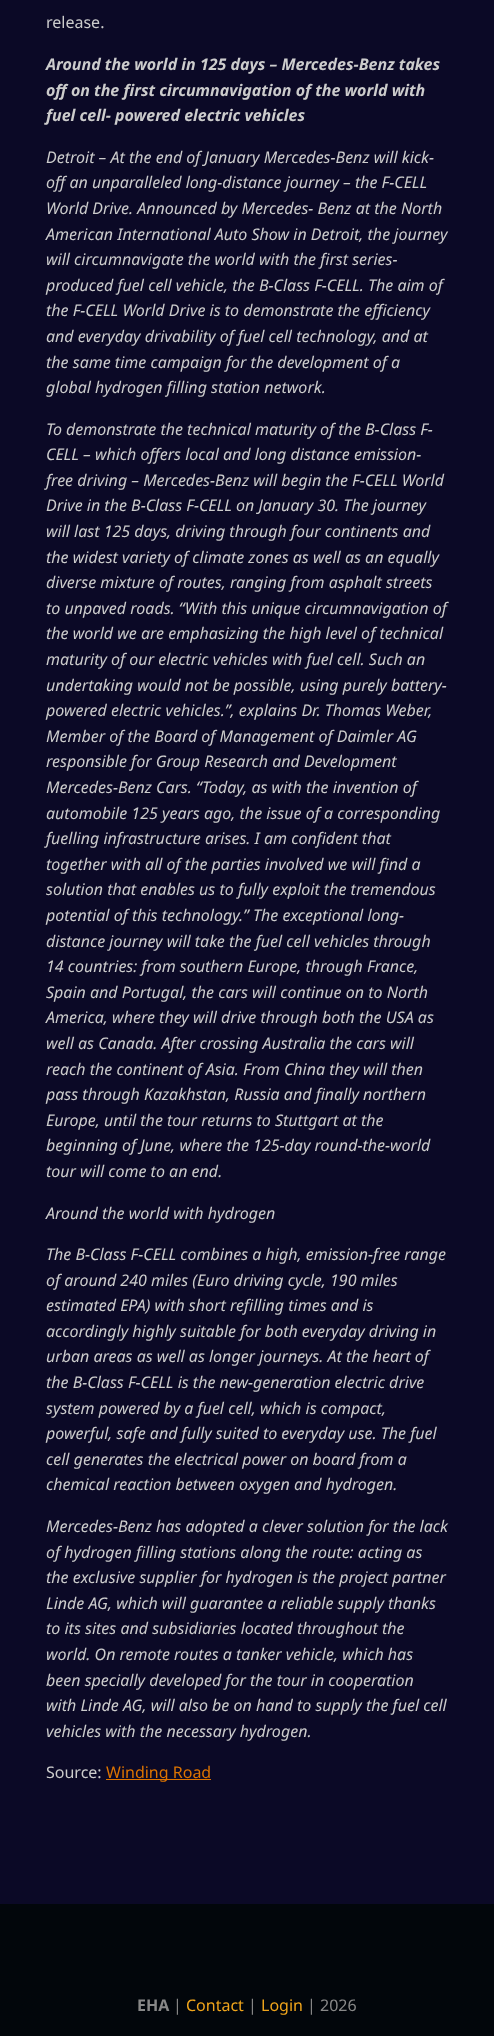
<!DOCTYPE html>
<meta charset="utf-8">
<style>body { margin: 0 } canvas { display: block }</style>
<canvas id="canvas" width="494" height="2036"></canvas>
<script>
window.onload = function () {
    const canvas = document.getElementById('canvas');
    const context = canvas.getContext('2d');
    context.miterLimit = 4;
    context.fontKerning = 'normal';

    context.fillStyle = 'rgb(2, 6, 11)';
    context.fillRect(0, 0, 494, 2036);
    context.fillStyle = 'rgb(11, 9, 38)';
    context.fillRect(0, 0, 494, 1904);
    context.fillStyle = 'rgb(222, 116, 0)';
    context.fillRect(106, 1779, 105, 1);
    context.font = '16px Noto Sans';
    context.fillStyle = 'rgb(204, 204, 204)';
    context.fillText('release.', 46, 28);
    context.font = 'italic bold 16px Noto Sans';
    context.fillText('Around the world in 125 days – Mercedes-Benz takes', 46, 70);
    context.fillText('off on the first circumnavigation of the world with', 46, 96);
    context.fillText('fuel cell- powered electric vehicles', 46, 121);
    context.font = 'italic 16px Noto Sans';
    context.fillText('Detroit – At the end of January Mercedes-Benz will kick-', 46, 163);
    context.fillText('off an unparalleled long-distance journey – the F-CELL', 46, 188);
    context.fillText('World Drive. Announced by Mercedes- Benz at the North', 46, 214);
    context.fillText('American International Auto Show in Detroit, the journey', 46, 240);
    context.fillText('will circumnavigate the world with the first series-', 46, 265);
    context.fillText('produced fuel cell vehicle, the B-Class F-CELL. The aim of', 46, 291);
    context.fillText('the F-CELL World Drive is to demonstrate the efficiency', 46, 316);
    context.fillText('and everyday drivability of fuel cell technology, and at', 46, 342);
    context.fillText('the same time campaign for the development of a', 46, 368);
    context.fillText('global hydrogen filling station network.', 46, 393);
    context.fillText('To demonstrate the technical maturity of the B-Class F-', 46, 435);
    context.fillText('CELL – which offers local and long distance emission-', 46, 460);
    context.fillText('free driving – Mercedes-Benz will begin the F-CELL World', 46, 486);
    context.fillText('Drive in the B-Class F-CELL on January 30. The journey', 46, 511);
    context.fillText('will last 125 days, driving through four continents and', 46, 537);
    context.fillText('the widest variety of climate zones as well as an equally', 46, 563);
    context.fillText('diverse mixture of routes, ranging from asphalt streets', 46, 588);
    context.fillText('to unpaved roads. “With this unique circumnavigation of', 46, 614);
    context.fillText('the world we are emphasizing the high level of technical', 46, 639);
    context.fillText('maturity of our electric vehicles with fuel cell. Such an', 46, 665);
    context.fillText('undertaking would not be possible, using purely battery-', 46, 691);
    context.fillText('powered electric vehicles.”, explains Dr. Thomas Weber,', 46, 716);
    context.fillText('Member of the Board of Management of Daimler AG', 46, 742);
    context.fillText('responsible for Group Research and Development', 46, 767);
    context.fillText('Mercedes-Benz Cars. “Today, as with the invention of', 46, 793);
    context.fillText('automobile 125 years ago, the issue of a corresponding', 46, 819);
    context.fillText('fuelling infrastructure arises. I am confident that', 46, 844);
    context.fillText('together with all of the parties involved we will find a', 46, 870);
    context.fillText('solution that enables us to fully exploit the tremendous', 46, 895);
    context.fillText('potential of this technology.” The exceptional long-', 46, 921);
    context.fillText('distance journey will take the fuel cell vehicles through', 46, 947);
    context.fillText('14 countries: from southern Europe, through France,', 46, 972);
    context.fillText('Spain and Portugal, the cars will continue on to North', 46, 998);
    context.fillText('America, where they will drive through both the USA as', 46, 1023);
    context.fillText('well as Canada. After crossing Australia the cars will', 46, 1049);
    context.fillText('reach the continent of Asia. From China they will then', 46, 1075);
    context.fillText('pass through Kazakhstan, Russia and finally northern', 46, 1100);
    context.fillText('Europe, until the tour returns to Stuttgart at the', 46, 1126);
    context.fillText('beginning of June, where the 125-day round-the-world', 46, 1151);
    context.fillText('tour will come to an end.', 46, 1177);
    context.fillText('Around the world with hydrogen', 46, 1219);
    context.fillText('The B-Class F-CELL combines a high, emission-free range', 46, 1260);
    context.fillText('of around 240 miles (Euro driving cycle, 190 miles', 46, 1286);
    context.fillText('estimated EPA) with short refilling times and is', 46, 1311);
    context.fillText('accordingly highly suitable for both everyday driving in', 46, 1337);
    context.fillText('urban areas as well as longer journeys. At the heart of', 46, 1362);
    context.fillText('the B-Class F-CELL is the new-generation electric drive', 46, 1388);
    context.fillText('system powered by a fuel cell, which is compact,', 46, 1414);
    context.fillText('powerful, safe and fully suited to everyday use. The fuel', 46, 1439);
    context.fillText('cell generates the electrical power on board from a', 46, 1465);
    context.fillText('chemical reaction between oxygen and hydrogen.', 46, 1490);
    context.fillText('Mercedes-Benz has adopted a clever solution for the lack', 46, 1532);
    context.fillText('of hydrogen filling stations along the route: acting as', 46, 1558);
    context.fillText('the exclusive supplier for hydrogen is the project partner', 46, 1583);
    context.fillText('Linde AG, which will guarantee a reliable supply thanks', 46, 1609);
    context.fillText('to its sites and subsidiaries located throughout the', 46, 1634);
    context.fillText('world. On remote routes a tanker vehicle, which has', 46, 1660);
    context.fillText('been specially developed for the tour in cooperation', 46, 1686);
    context.fillText('with Linde AG, will also be on hand to supply the fuel cell', 46, 1711);
    context.fillText('vehicles with the necessary hydrogen.', 46, 1737);
    context.font = '16px Noto Sans';
    context.fillText('Source:', 46, 1778);
    context.fillStyle = 'rgb(222, 116, 0)';
    context.fillText('Winding Road', 106, 1778);
    context.font = 'bold 16px Noto Sans';
    context.fillStyle = 'rgb(136, 136, 136)';
    context.fillText('EHA', 137, 2011);
    context.font = '16px Noto Sans';
    context.fillText('|', 173, 2011);
    context.fillStyle = 'rgb(240, 165, 28)';
    context.fillText('Contact', 186, 2011);
    context.fillStyle = 'rgb(136, 136, 136)';
    context.fillText('|', 248, 2011);
    context.fillStyle = 'rgb(240, 165, 28)';
    context.fillText('Login', 261, 2011);
    context.fillStyle = 'rgb(136, 136, 136)';
    context.fillText('| 2026', 307, 2011);
};
</script>
